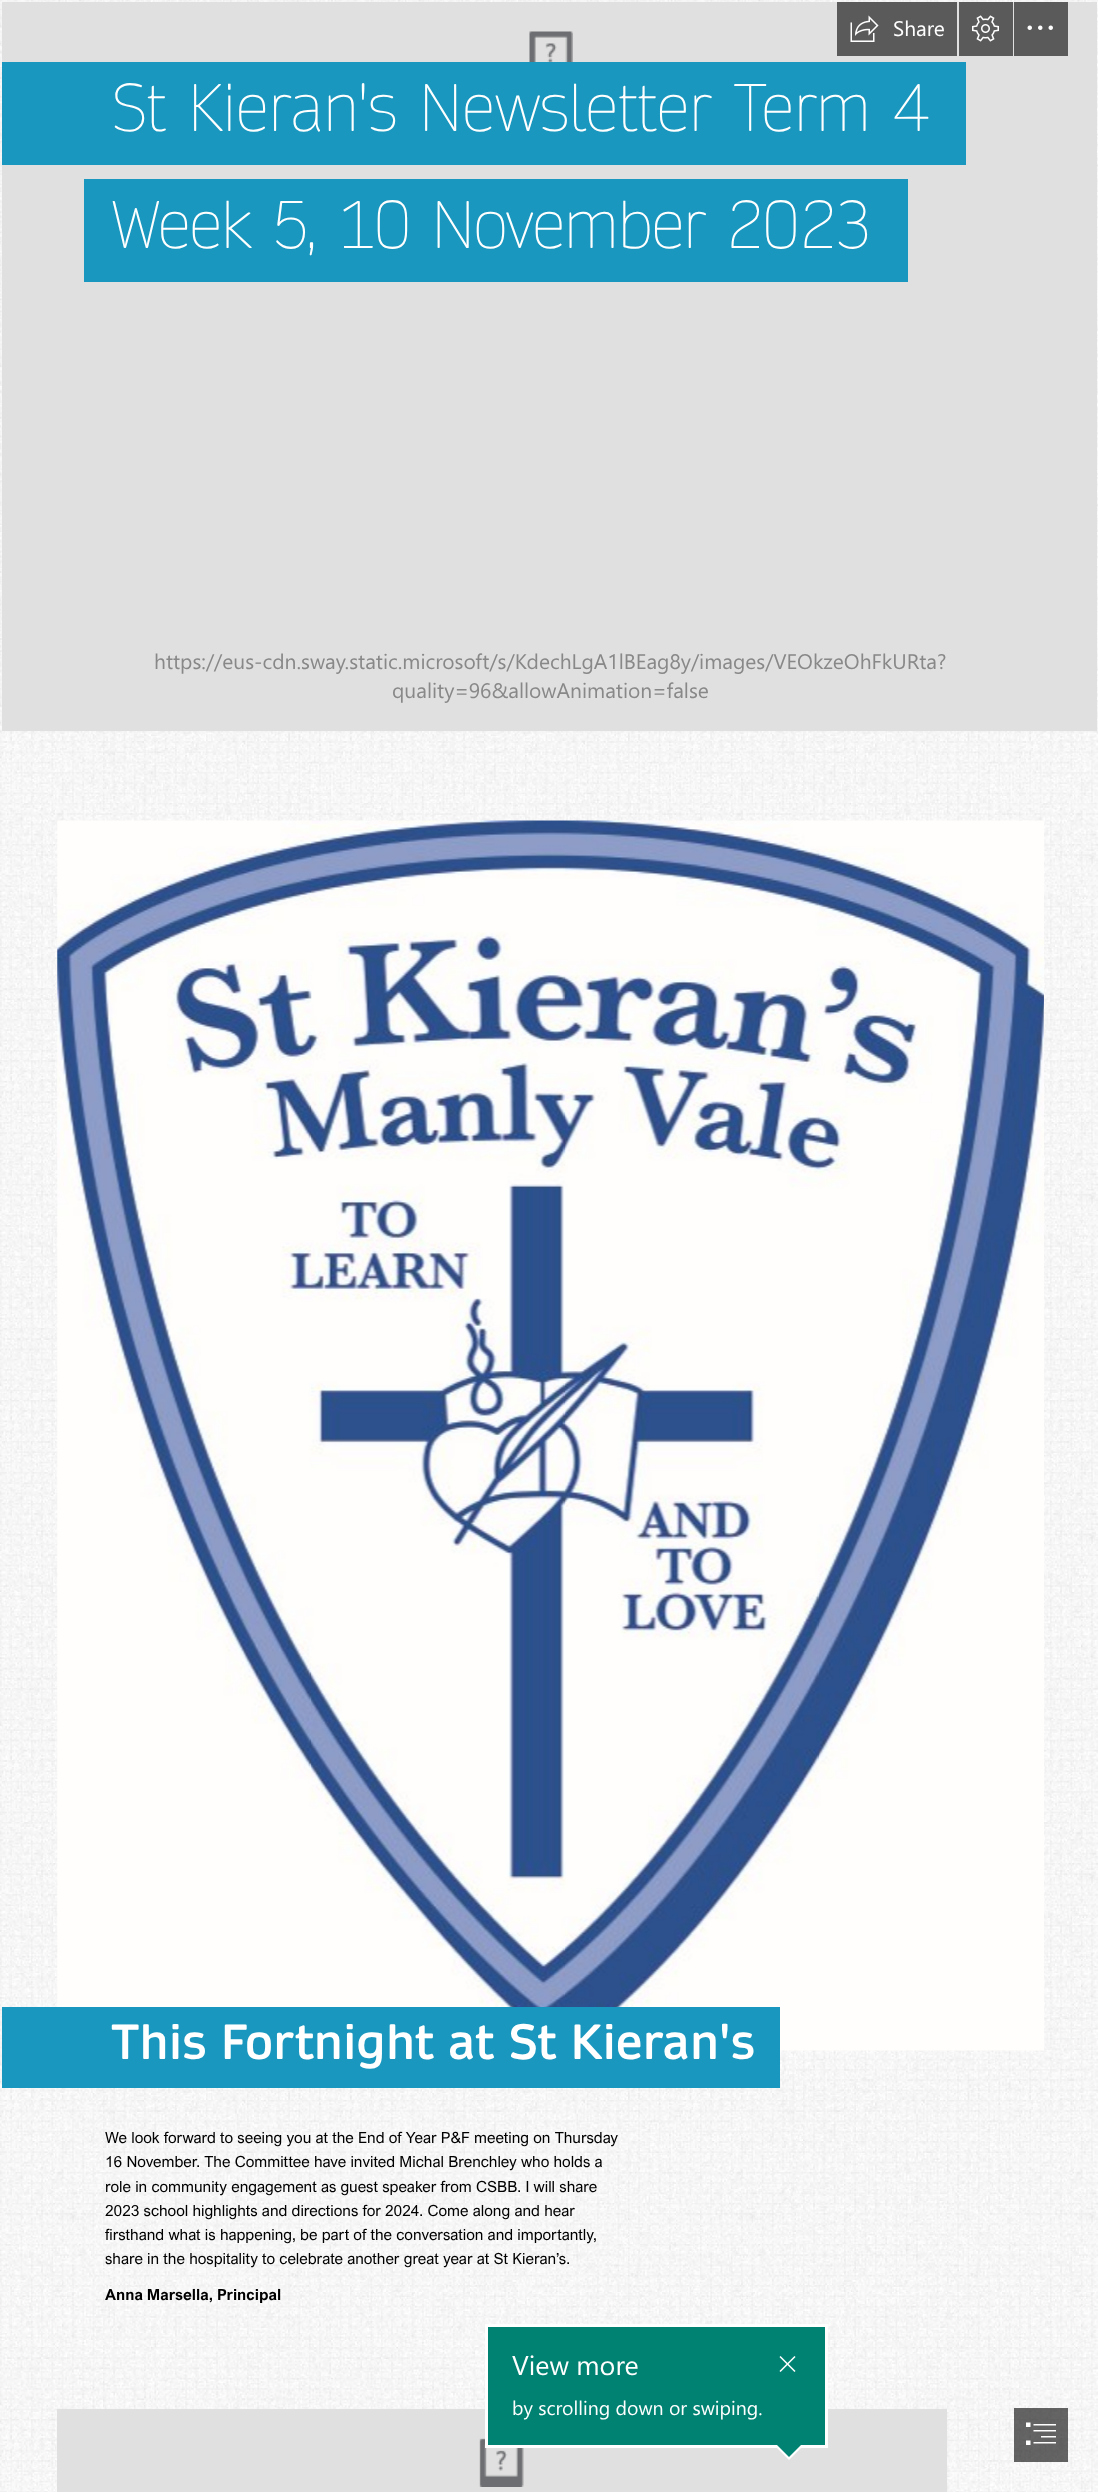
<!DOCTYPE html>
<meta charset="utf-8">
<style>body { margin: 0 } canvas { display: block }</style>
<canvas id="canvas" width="1098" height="2492"></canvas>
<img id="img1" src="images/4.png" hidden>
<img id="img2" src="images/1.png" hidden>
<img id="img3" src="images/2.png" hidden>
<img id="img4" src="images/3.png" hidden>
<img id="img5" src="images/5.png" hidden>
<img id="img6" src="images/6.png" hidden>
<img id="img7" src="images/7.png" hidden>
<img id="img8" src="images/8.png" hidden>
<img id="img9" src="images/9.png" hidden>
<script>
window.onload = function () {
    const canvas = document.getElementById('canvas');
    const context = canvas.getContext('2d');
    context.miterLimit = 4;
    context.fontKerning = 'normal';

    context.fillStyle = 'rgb(234, 234, 234)';
    context.fillRect(0, 0, 1098, 2492);
    context.drawImage(document.getElementById('img1'), 0, 0, 1098, 2492);
    context.fillStyle = 'rgb(224, 224, 224)';
    context.fillRect(2, 2, 1095, 729);
    context.fillStyle = 'rgb(90, 90, 90)';
    context.fillRect(837, 2, 120, 54);
    context.drawImage(document.getElementById('img2'), 850, 15, 29, 27);
    context.fillRect(959, 2, 54, 54);
    context.drawImage(document.getElementById('img3'), 972, 15, 27, 27);
    context.fillRect(1014, 2, 54, 54);
    context.drawImage(document.getElementById('img4'), 1027, 25, 26, 5);
    context.fillStyle = 'rgb(25, 151, 190)';
    context.fillRect(2, 62, 964, 103);
    context.fillRect(84, 179, 824, 103);
    context.drawImage(document.getElementById('img5'), 529, 31, 44, 31);
    context.drawImage(document.getElementById('img6'), 57, 820, 987, 1231);
    context.fillRect(2, 2007, 778, 81);
    context.fillStyle = 'rgb(224, 224, 224)';
    context.fillRect(57, 2409, 890, 83);
    context.drawImage(document.getElementById('img7'), 479, 2438, 45, 49);
    context.fillStyle = 'rgb(0, 130, 114)';
    context.beginPath();
    context.rect(486.5, 2325.5, 340, 121);
    context.fill();
    context.strokeStyle = 'rgb(255, 255, 255)';
    context.lineWidth = 3;
    context.stroke();
    context.drawImage(document.getElementById('img8'), 779, 2356, 17, 16);
    context.fillStyle = 'rgb(255, 255, 255)';
    context.beginPath();
    context.moveTo(774, 2445);
    context.lineTo(804, 2445);
    context.lineTo(789, 2460);
    context.closePath();
    context.fill();
    context.fillStyle = 'rgb(0, 130, 114)';
    context.beginPath();
    context.moveTo(777, 2445);
    context.lineTo(801, 2445);
    context.lineTo(789, 2457);
    context.closePath();
    context.fill();
    context.fillStyle = 'rgba(0, 0, 0, 0.6)';
    context.fillRect(1014, 2408, 54, 54);
    context.drawImage(document.getElementById('img9'), 1026, 2422, 30, 23);
    context.font = '21px Segoe UI';
    context.fillStyle = 'rgb(255, 255, 255)';
    context.fillText('Share', 893, 36);
    context.letterSpacing = '-0.9px';
    context.font = '100 64.3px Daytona';
    context.fillText('St Kieran\'s Newsletter Term 4', 111, 131);
    context.letterSpacing = '-1.9px';
    context.fillText('Week 5, 10 November 2023', 111, 248);
    context.letterSpacing = '0px';
    context.font = '21px Segoe UI';
    context.fillStyle = 'rgb(136, 136, 136)';
    context.fillText('https://eus-cdn.sway.static.microsoft/s/KdechLgA1lBEag8y/images/VEOkzeOhFkURta?', 154, 669);
    context.fillText('quality=96&allowAnimation=false', 392, 698);
    context.letterSpacing = '-0.15px';
    context.font = '600 47.25px Daytona';
    context.fillStyle = 'rgb(255, 255, 255)';
    context.fillText('This Fortnight at St Kieran\'s', 111, 2059);
    context.letterSpacing = '0px';
    context.font = '15.45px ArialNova';
    context.fillStyle = 'rgb(0, 0, 0)';
    context.fillText('We look forward to seeing you at the End of Year P&F meeting on Thursday', 105, 2143);
    context.fillText('16 November. The Committee have invited Michal Brenchley who holds a', 105, 2167);
    context.fillText('role in community engagement as guest speaker from CSBB. I will share', 105, 2192);
    context.fillText('2023 school highlights and directions for 2024. Come along and hear', 105, 2216);
    context.fillText('firsthand what is happening, be part of the conversation and importantly,', 105, 2240);
    context.fillText('share in the hospitality to celebrate another great year at St Kieran’s.', 105, 2264);
    context.font = 'bold 15.45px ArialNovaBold';
    context.fillText('Anna Marsella, Principal', 105, 2300);
    context.font = '27px Segoe UI';
    context.fillStyle = 'rgb(255, 255, 255)';
    context.fillText('View more', 512, 2375);
    context.font = '19.5px Segoe UI';
    context.fillText('by scrolling down or swiping.', 512, 2415);
};
</script>
